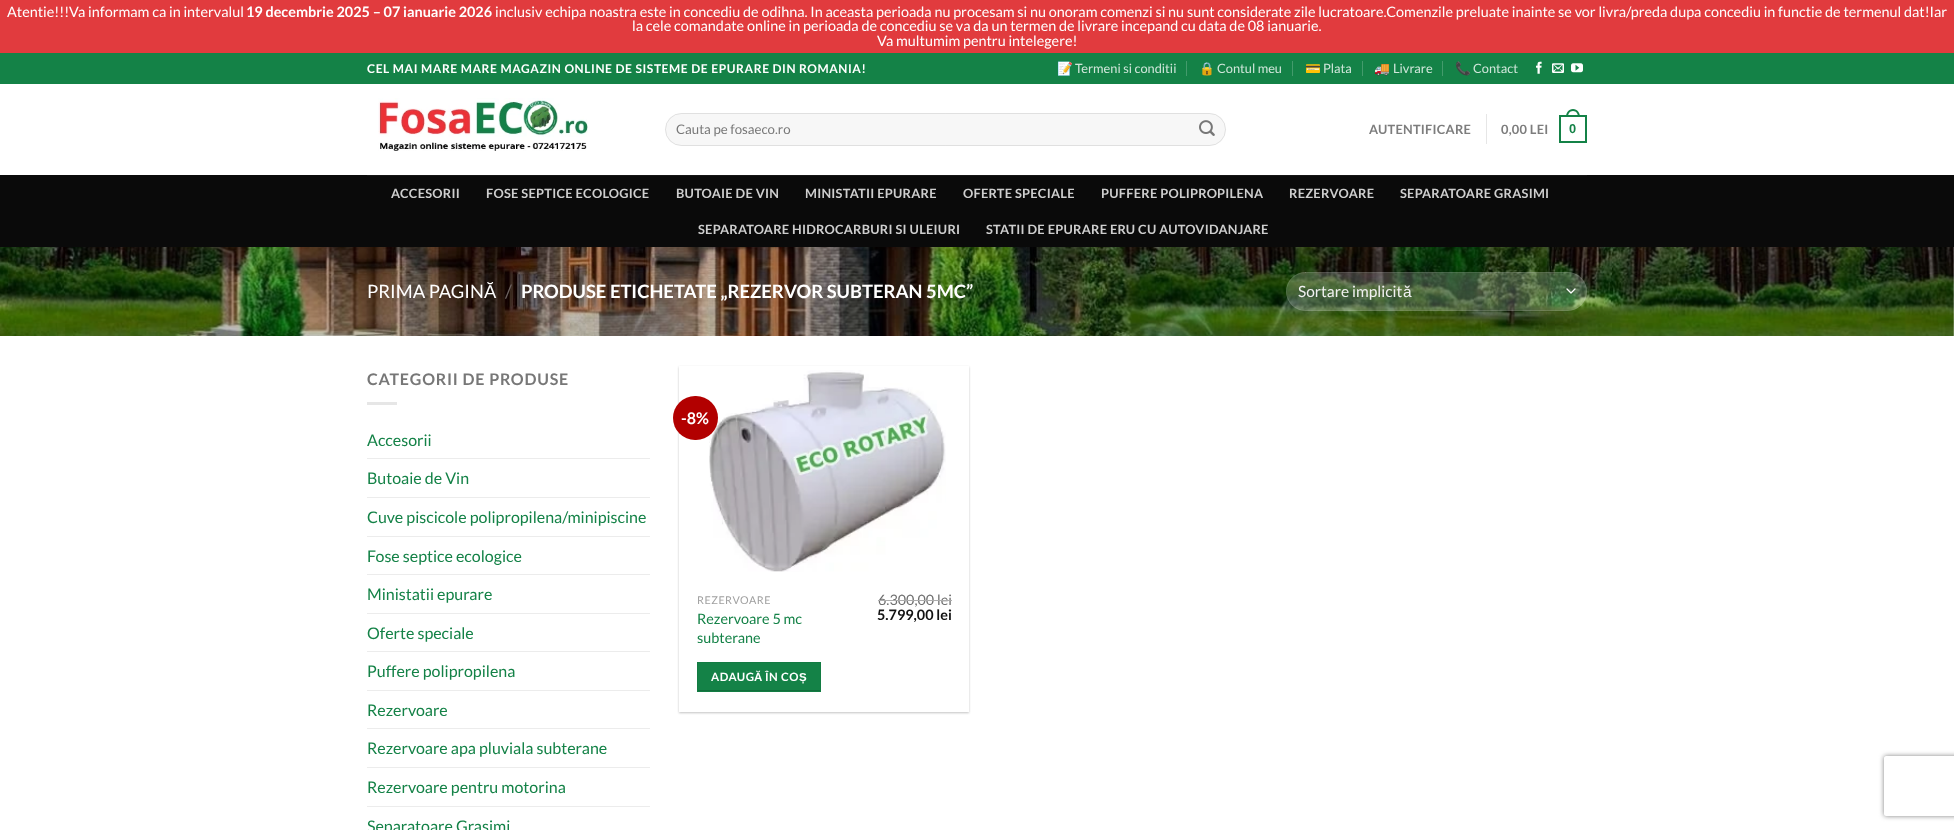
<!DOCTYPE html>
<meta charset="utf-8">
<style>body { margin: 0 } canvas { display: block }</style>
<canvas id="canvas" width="1954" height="830"></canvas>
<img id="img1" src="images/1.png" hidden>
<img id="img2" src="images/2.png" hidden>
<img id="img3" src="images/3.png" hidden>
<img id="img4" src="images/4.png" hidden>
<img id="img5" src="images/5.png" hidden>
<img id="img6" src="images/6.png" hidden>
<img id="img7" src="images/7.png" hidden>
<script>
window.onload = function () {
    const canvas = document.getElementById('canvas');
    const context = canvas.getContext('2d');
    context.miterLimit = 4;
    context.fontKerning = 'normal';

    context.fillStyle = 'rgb(255, 255, 255)';
    context.fillRect(0, 0, 1954, 830);
    context.fillStyle = 'rgb(225, 59, 62)';
    context.fillRect(0, 0, 1954, 53);
    context.fillStyle = 'rgb(20, 130, 71)';
    context.fillRect(0, 53, 1954, 31);
    context.fillStyle = 'rgb(67, 155, 108)';
    context.fillRect(1186, 61, 1, 15);
    context.fillRect(1292, 61, 1, 15);
    context.fillRect(1362, 61, 1, 15);
    context.fillRect(1442, 61, 1, 15);
    context.drawImage(document.getElementById('img1'), 1536, 61, 6, 13);
    context.drawImage(document.getElementById('img2'), 1552, 63, 12, 10);
    context.drawImage(document.getElementById('img3'), 1571, 63, 12, 10);
    context.drawImage(document.getElementById('img4'), 378, 98, 210, 53);
    context.fillStyle = 'rgb(247, 247, 247)';
    context.beginPath();
    context.roundRect(665, 113, 561, 33, 16.5);
    context.fill();
    context.beginPath();
    context.roundRect(665.5, 113.5, 560, 32, 16);
    context.strokeStyle = 'rgba(0, 0, 0, 0.09)';
    context.stroke();
    context.drawImage(document.getElementById('img5'), 1199, 120, 16, 16);
    context.fillStyle = 'rgb(230, 230, 230)';
    context.fillRect(1486, 114, 1, 30);
    context.strokeStyle = 'rgb(20, 130, 71)';
    context.lineWidth = 2;
    context.strokeRect(1560, 116, 26, 26);
    context.fillStyle = 'rgb(20, 130, 71)';
    context.beginPath();
    context.moveTo(1573, 109);
    context.bezierCurveTo(1577.5, 109, 1580, 113, 1580, 117);
    context.lineTo(1566, 117);
    context.bezierCurveTo(1566, 113, 1568.5, 109, 1573, 109);
    context.closePath();
    context.moveTo(1573, 111);
    context.bezierCurveTo(1576.5, 111, 1578, 114, 1578, 117);
    context.lineTo(1568, 117);
    context.bezierCurveTo(1568, 114, 1569.5, 111, 1573, 111);
    context.closePath();
    context.fill('evenodd');
    context.fillStyle = 'rgb(10, 10, 10)';
    context.fillRect(0, 175, 1954, 72);
    context.fillStyle = 'rgb(21, 21, 21)';
    context.fillRect(367, 175, 1220, 1);
    context.drawImage(document.getElementById('img6'), 0, 247, 1954, 89);
    context.fillStyle = 'rgba(255, 255, 255, 0.2)';
    context.beginPath();
    context.roundRect(1286, 272, 301, 39, 19.5);
    context.fill();
    context.beginPath();
    context.moveTo(1567, 289);
    context.lineTo(1571, 293);
    context.lineTo(1575, 289);
    context.strokeStyle = 'rgb(255, 255, 255)';
    context.lineWidth = 1.3;
    context.lineCap = 'round';
    context.lineJoin = 'round';
    context.stroke();
    context.beginPath();
    context.roundRect(1286.5, 272.5, 300, 38, 19);
    context.strokeStyle = 'rgba(255, 255, 255, 0.09)';
    context.lineWidth = 1;
    context.lineJoin = 'miter';
    context.stroke();
    context.fillStyle = 'rgb(230, 230, 230)';
    context.fillRect(367, 402, 30, 3);
    context.fillStyle = 'rgb(236, 236, 236)';
    context.fillRect(367, 458, 283, 1);
    context.fillRect(367, 497, 283, 1);
    context.fillRect(367, 536, 283, 1);
    context.fillRect(367, 574, 283, 1);
    context.fillRect(367, 613, 283, 1);
    context.fillRect(367, 651, 283, 1);
    context.fillRect(367, 690, 283, 1);
    context.fillRect(367, 728, 283, 1);
    context.fillRect(367, 767, 283, 1);
    context.fillRect(367, 806, 283, 1);
    context.save();
    context.beginPath();
    context.moveTo(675, 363);
    context.lineTo(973, 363);
    context.lineTo(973, 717);
    context.lineTo(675, 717);
    context.closePath();
    context.moveTo(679, 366);
    context.lineTo(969, 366);
    context.lineTo(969, 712);
    context.lineTo(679, 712);
    context.closePath();
    context.clip('evenodd');
    context.fillStyle = 'rgba(0, 0, 0, 0.24)';
    context.filter = 'blur(1px)';
    context.beginPath();
    context.rect(679, 367, 290, 346);
    context.fill();
    context.filter = 'none';
    context.restore();
    context.drawImage(document.getElementById('img7'), 709, 370, 237, 202);
    context.fillStyle = 'rgb(178, 0, 0)';
    context.beginPath();
    context.roundRect(673, 396, 45, 44, 22);
    context.fill();
    context.fillStyle = 'rgb(20, 130, 71)';
    context.fillRect(698, 663, 122, 27);
    context.strokeStyle = 'rgb(19, 124, 67)';
    context.strokeRect(697.5, 662.5, 123, 29);
    context.save();
    context.beginPath();
    context.rect(698, 663, 122, 28);
    context.clip();
    context.fillStyle = 'rgb(17, 111, 60)';
    context.beginPath();
    context.moveTo(599, 564);
    context.lineTo(919, 564);
    context.lineTo(919, 790);
    context.lineTo(599, 790);
    context.closePath();
    context.moveTo(698, 662);
    context.lineTo(820, 662);
    context.lineTo(820, 690);
    context.lineTo(698, 690);
    context.closePath();
    context.fill('evenodd');
    context.restore();
    context.save();
    context.beginPath();
    context.moveTo(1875, 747);
    context.lineTo(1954, 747);
    context.lineTo(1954, 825);
    context.lineTo(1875, 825);
    context.closePath();
    context.moveTo(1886, 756);
    context.lineTo(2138, 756);
    context.bezierCurveTo(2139, 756, 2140, 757, 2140, 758);
    context.lineTo(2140, 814);
    context.bezierCurveTo(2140, 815, 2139, 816, 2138, 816);
    context.lineTo(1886, 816);
    context.bezierCurveTo(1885, 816, 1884, 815, 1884, 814);
    context.lineTo(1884, 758);
    context.bezierCurveTo(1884, 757, 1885, 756, 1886, 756);
    context.closePath();
    context.clip('evenodd');
    context.fillStyle = 'rgb(128, 128, 128)';
    context.filter = 'blur(2.5px)';
    context.beginPath();
    context.roundRect(1884, 756, 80, 60, 2);
    context.fill();
    context.filter = 'none';
    context.restore();
    context.font = '14.4px Lato';
    context.fillStyle = 'rgb(255, 255, 255)';
    context.fillText('Atentie!!!Va informam ca in intervalul', 7, 17);
    context.font = 'bold 14.4px Lato';
    context.fillText('19 decembrie 2025 – 07 ianuarie 2026', 246, 17);
    context.font = '14.4px Lato';
    context.fillText('inclusiv echipa noastra este in concediu de odihna. In aceasta perioada nu procesam si nu onoram comenzi si nu sunt considerate zile lucratoare.Comenzile preluate inainte se vor livra/preda dupa concediu in functie de termenul dat!Iar', 495, 17);
    context.fillText('la cele comandate online in perioada de concediu se va da un termen de livrare incepand cu data de 08 ianuarie.', 632, 31);
    context.fillText('Va multumim pentru intelegere!', 877, 46);
    context.letterSpacing = '0.6px';
    context.font = 'bold 12px Lato';
    context.fillText('CEL MAI MARE MARE MAGAZIN ONLINE DE SISTEME DE EPURARE DIN ROMANIA!', 367, 73);
    context.letterSpacing = '0px';
    context.font = '12.8px Noto Color Emoji';
    context.fillStyle = 'rgb(208, 230, 218)';
    context.fillText('📝', 1057, 73);
    context.font = '12.8px Lato';
    context.fillText('Termeni si conditii', 1075, 73);
    context.font = '12.8px Noto Color Emoji';
    context.fillText('🔒', 1199, 73);
    context.font = '12.8px Lato';
    context.fillText('Contul meu', 1217, 73);
    context.font = '12.8px Noto Color Emoji';
    context.fillText('💳', 1305, 73);
    context.font = '12.8px Lato';
    context.fillText('Plata', 1323, 73);
    context.font = '12.8px Noto Color Emoji';
    context.fillText('🚚', 1374, 73);
    context.font = '12.8px Lato';
    context.fillText('Livrare', 1393, 73);
    context.font = '12.8px Noto Color Emoji';
    context.fillText('📞', 1455, 73);
    context.font = '12.8px Lato';
    context.fillText('Contact', 1473, 73);
    context.font = '13.25px Lato';
    context.fillStyle = 'rgb(119, 119, 119)';
    context.fillText('Cauta pe fosaeco.ro', 676, 134);
    context.letterSpacing = '0.25px';
    context.font = 'bold 12.8px Lato';
    context.fillStyle = 'rgb(125, 125, 125)';
    context.fillText('AUTENTIFICARE', 1369, 134);
    context.fillText('0,00 LEI', 1501, 134);
    context.font = 'bold 12.8px Liberation Sans';
    context.fillStyle = 'rgb(20, 130, 71)';
    context.fillText('0', 1569, 133);
    context.font = 'bold 12.8px Lato';
    context.fillStyle = 'rgb(206, 206, 206)';
    context.fillText('ACCESORII', 391, 198);
    context.fillText('FOSE SEPTICE ECOLOGICE', 486, 198);
    context.fillText('BUTOAIE DE VIN', 676, 198);
    context.fillText('MINISTATII EPURARE', 805, 198);
    context.fillText('OFERTE SPECIALE', 963, 198);
    context.fillText('PUFFERE POLIPROPILENA', 1101, 198);
    context.fillText('REZERVOARE', 1289, 198);
    context.fillText('SEPARATOARE GRASIMI', 1400, 198);
    context.fillText('SEPARATOARE HIDROCARBURI SI ULEIURI', 698, 234);
    context.fillText('STATII DE EPURARE ERU CU AUTOVIDANJARE', 986, 234);
    context.letterSpacing = '0px';
    context.font = '18.4px Lato';
    context.fillStyle = 'rgb(255, 255, 255)';
    context.fillText('PRIMA PAGIN', 367, 298);
    context.font = '18.4px Liberation Sans';
    context.fillText('Ă', 484, 298);
    context.font = '18.4px Lato';
    context.fillStyle = 'rgb(109, 99, 96)';
    context.fillText('/', 505, 298);
    context.font = 'bold 18.4px Lato';
    context.fillStyle = 'rgb(255, 255, 255)';
    context.fillText('PRODUSE ETICHETATE „REZERVOR SUBTERAN 5MC”', 521, 298);
    context.font = '15.5px Lato';
    context.fillStyle = 'rgb(241, 241, 241)';
    context.fillText('Sortare implicit', 1298, 297);
    context.font = '15.5px Liberation Sans';
    context.fillText('ă', 1403, 297);
    context.letterSpacing = '0.8px';
    context.font = 'bold 16px Lato';
    context.fillStyle = 'rgb(119, 119, 119)';
    context.fillText('CATEGORII DE PRODUSE', 367, 385);
    context.letterSpacing = '0px';
    context.font = '16px Lato';
    context.fillStyle = 'rgb(20, 130, 71)';
    context.fillText('Accesorii', 367, 446);
    context.fillText('Butoaie de Vin', 367, 484);
    context.fillText('Cuve piscicole polipropilena/minipiscine', 367, 523);
    context.fillText('Fose septice ecologice', 367, 562);
    context.fillText('Ministatii epurare', 367, 600);
    context.fillText('Oferte speciale', 367, 639);
    context.fillText('Puffere polipropilena', 367, 677);
    context.fillText('Rezervoare', 367, 716);
    context.fillText('Rezervoare apa pluviala subterane', 367, 754);
    context.fillText('Rezervoare pentru motorina', 367, 793);
    context.fillText('Separatoare Grasimi', 367, 832);
    context.font = 'bold 16px Lato';
    context.fillStyle = 'rgb(255, 255, 255)';
    context.fillText('-8%', 681, 424);
    context.letterSpacing = '0.5px';
    context.font = '10.75px Lato';
    context.fillStyle = 'rgb(160, 160, 160)';
    context.fillText('REZERVOARE', 697, 604);
    context.letterSpacing = '0px';
    context.font = '14.4px Lato';
    context.fillStyle = 'rgb(20, 130, 71)';
    context.fillText('Rezervoare 5 mc', 697, 624);
    context.fillText('subterane', 697, 643);
    context.fillStyle = 'rgb(112, 112, 112)';
    context.fillText('6.300,00 lei', 878, 605);
    context.fillStyle = 'rgb(173, 173, 173)';
    context.fillRect(878, 600, 74, 1);
    context.font = 'bold 14.4px Lato';
    context.fillStyle = 'rgb(17, 17, 17)';
    context.fillText('5.799,00 lei', 877, 620);
    context.letterSpacing = '0.5px';
    context.font = 'bold 11.5px Lato';
    context.fillStyle = 'rgb(255, 255, 255)';
    context.fillText('ADAUG', 711, 681);
    context.font = 'bold 11.5px Liberation Sans';
    context.fillText('Ă', 754, 681);
    context.font = 'bold 11.5px Lato';
    context.fillText('ÎN CO', 765, 681);
    context.font = 'bold 11.5px Liberation Sans';
    context.fillText('Ș', 799, 681);
};
</script>
